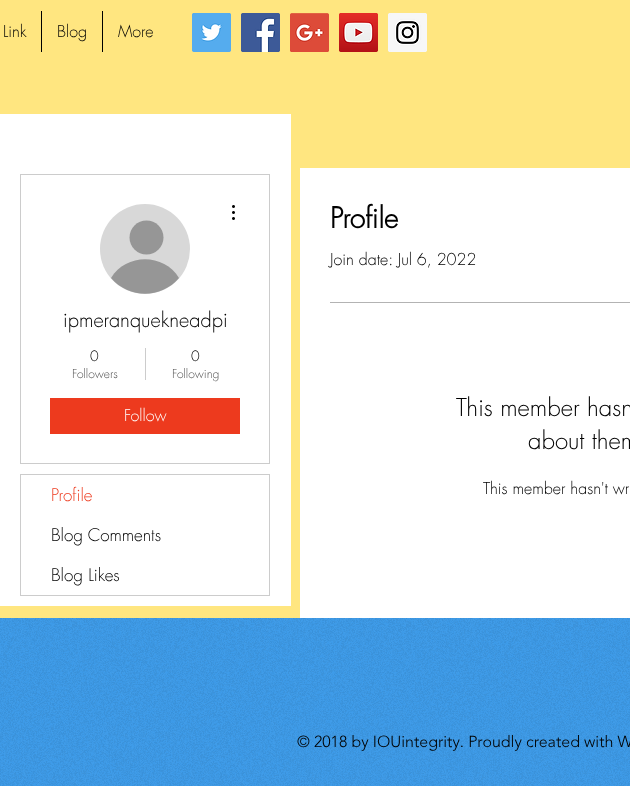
<!DOCTYPE html>
<meta charset="utf-8">
<style>body { margin: 0 } canvas { display: block }</style>
<canvas id="canvas" width="630" height="786"></canvas>
<img id="img1" src="images/1.png" hidden>
<img id="img2" src="images/2.png" hidden>
<img id="img3" src="images/3.png" hidden>
<img id="img4" src="images/4.png" hidden>
<img id="img5" src="images/5.png" hidden>
<img id="img6" src="images/6.png" hidden>
<img id="img7" src="images/7.png" hidden>
<script>
window.onload = function () {
    const canvas = document.getElementById('canvas');
    const context = canvas.getContext('2d');
    context.miterLimit = 4;
    context.fontKerning = 'normal';

    context.fillStyle = 'rgb(255, 230, 128)';
    context.fillRect(0, 0, 630, 786);
    context.fillStyle = 'rgb(0, 0, 0)';
    context.fillRect(41, 11, 1, 41);
    context.fillRect(102, 11, 1, 41);
    context.drawImage(document.getElementById('img1'), 192, 13, 39, 39);
    context.drawImage(document.getElementById('img2'), 241, 13, 39, 39);
    context.drawImage(document.getElementById('img3'), 290, 13, 39, 39);
    context.drawImage(document.getElementById('img4'), 339, 13, 39, 39);
    context.drawImage(document.getElementById('img5'), 388, 13, 39, 39);
    context.fillStyle = 'rgb(255, 255, 255)';
    context.fillRect(0, 114, 291, 492);
    context.strokeStyle = 'rgb(204, 204, 204)';
    context.strokeRect(20.5, 174.5, 249, 289);
    context.fillStyle = 'rgb(216, 216, 216)';
    context.beginPath();
    context.arc(145, 249, 45, 0, 2 * Math.PI);
    context.fill();
    context.fillStyle = 'rgb(150, 150, 150)';
    context.beginPath();
    context.arc(146.5, 237.5, 17, 0, 2 * Math.PI);
    context.fill();
    context.beginPath();
    context.moveTo(179, 278);
    context.bezierCurveTo(161, 299, 129, 299, 111, 278);
    context.bezierCurveTo(126, 253, 164, 253, 179, 278);
    context.closePath();
    context.fill();
    context.drawImage(document.getElementById('img6'), 232, 205, 3, 15);
    context.fillStyle = 'rgb(204, 204, 204)';
    context.fillRect(145, 348, 1, 32);
    context.fillStyle = 'rgb(237, 58, 30)';
    context.fillRect(50, 398, 190, 36);
    context.strokeRect(20.5, 474.5, 249, 121);
    context.fillStyle = 'rgb(255, 255, 255)';
    context.fillRect(300, 168, 330, 450);
    context.fillStyle = 'rgb(179, 179, 179)';
    context.fillRect(330, 302, 300, 1);
    context.fillStyle = 'rgb(61, 155, 233)';
    context.fillRect(0, 618, 630, 168);
    context.drawImage(document.getElementById('img7'), 0, 618, 630, 168);
    context.font = '300 16px futura';
    context.fillStyle = 'rgb(0, 0, 0)';
    context.fillText('Link', 3, 37);
    context.fillText('Blog', 57, 37);
    context.fillText('More', 118, 37);
    context.font = '300 20px futura';
    context.fillText('ipmeranquekneadpi', 63, 327);
    context.font = '300 14px futura';
    context.fillText('0', 90, 361);
    context.font = '300 12px futura';
    context.fillStyle = 'rgb(77, 77, 77)';
    context.fillText('Followers', 72, 378);
    context.font = '300 14px futura';
    context.fillStyle = 'rgb(0, 0, 0)';
    context.fillText('0', 191, 361);
    context.font = '300 12px futura';
    context.fillStyle = 'rgb(77, 77, 77)';
    context.fillText('Following', 172, 378);
    context.font = '300 16px futura';
    context.fillStyle = 'rgb(255, 255, 255)';
    context.fillText('Follow', 124, 421);
    context.font = '300 17px futura';
    context.fillStyle = 'rgb(237, 58, 30)';
    context.fillText('Profile', 51, 501);
    context.fillStyle = 'rgb(0, 0, 0)';
    context.fillText('Blog Comments', 51, 541);
    context.fillText('Blog Likes', 51, 581);
    context.font = 'bold 28px futura';
    context.fillText('Profile', 330, 228);
    context.font = '300 16px futura';
    context.fillText('Join date: Jul 6, 2022', 330, 265);
    context.font = '300 24px futura';
    context.fillText('This member hasn', 456, 416);
    context.fillText('about them', 528, 449);
    context.font = '300 16px futura';
    context.fillText('This member hasn\'t wr', 483, 494);
    context.font = '300 16px "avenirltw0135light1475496"';
    context.fillText('© 2018 by IOUintegrity. Proudly created with W', 297, 747);
};
</script>
